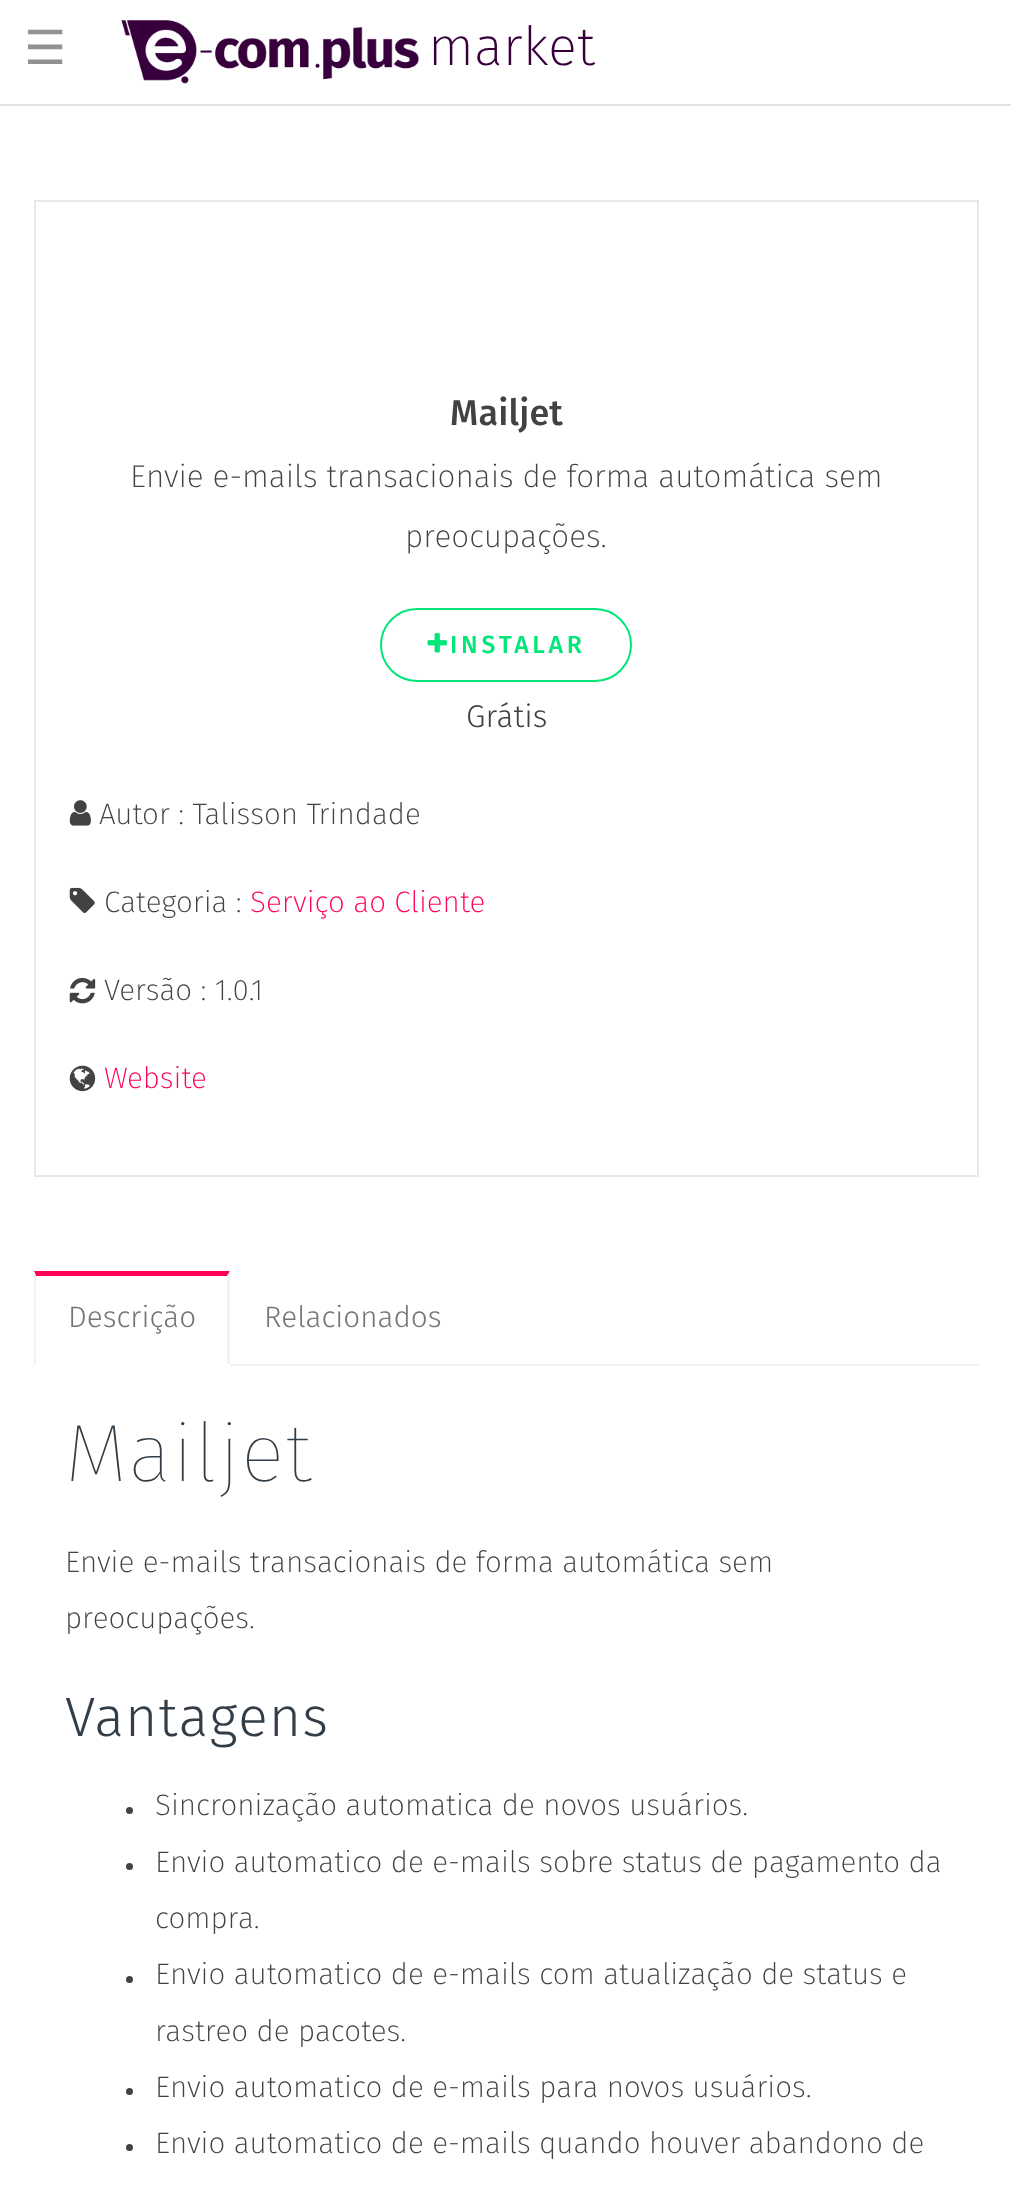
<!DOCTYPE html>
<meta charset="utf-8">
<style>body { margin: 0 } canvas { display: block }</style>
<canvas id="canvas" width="1011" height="2195"></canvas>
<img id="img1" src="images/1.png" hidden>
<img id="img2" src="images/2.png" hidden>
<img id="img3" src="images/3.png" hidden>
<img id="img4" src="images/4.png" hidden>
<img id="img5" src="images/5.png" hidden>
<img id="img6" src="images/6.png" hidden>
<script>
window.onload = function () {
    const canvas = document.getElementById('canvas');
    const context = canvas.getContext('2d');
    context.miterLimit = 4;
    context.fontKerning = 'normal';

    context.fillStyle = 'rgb(255, 255, 255)';
    context.fillRect(0, 0, 1011, 2195);
    context.fillStyle = 'rgb(223, 227, 232)';
    context.fillRect(0, 104, 1011, 2);
    context.drawImage(document.getElementById('img1'), 121, 20, 298, 64);
    context.strokeStyle = 'rgb(232, 232, 232)';
    context.lineWidth = 2;
    context.strokeRect(35, 201, 943, 975);
    context.beginPath();
    context.roundRect(381, 609, 250, 72, 36);
    context.strokeStyle = 'rgb(0, 230, 121)';
    context.stroke();
    context.drawImage(document.getElementById('img2'), 427, 633, 20, 20);
    context.drawImage(document.getElementById('img3'), 69, 800, 22, 26);
    context.drawImage(document.getElementById('img4'), 69, 887, 26, 26);
    context.drawImage(document.getElementById('img5'), 69, 977, 27, 27);
    context.drawImage(document.getElementById('img6'), 69, 1065, 27, 27);
    context.fillStyle = 'rgb(241, 242, 243)';
    context.fillRect(230, 1364, 749, 2);
    context.fillStyle = 'rgb(255, 1, 91)';
    context.beginPath();
    context.moveTo(34, 1271);
    context.lineTo(230, 1271);
    context.lineTo(227, 1276);
    context.lineTo(36, 1276);
    context.closePath();
    context.fill();
    context.fillStyle = 'rgb(241, 242, 243)';
    context.beginPath();
    context.moveTo(230, 1271);
    context.lineTo(230, 1366);
    context.lineTo(227, 1364);
    context.lineTo(227, 1276);
    context.closePath();
    context.fill();
    context.fillStyle = 'rgb(255, 255, 255)';
    context.fillRect(227, 1364, 3, 2);
    context.fillStyle = 'rgb(241, 242, 243)';
    context.beginPath();
    context.moveTo(34, 1366);
    context.lineTo(34, 1271);
    context.lineTo(36, 1276);
    context.lineTo(36, 1364);
    context.closePath();
    context.fill();
    context.fillStyle = 'rgb(66, 66, 66)';
    context.beginPath();
    context.arc(129.5, 1810.5, 3.5, 0, 2 * Math.PI);
    context.fill();
    context.beginPath();
    context.arc(129.5, 1866.5, 3.5, 0, 2 * Math.PI);
    context.fill();
    context.beginPath();
    context.arc(129.5, 1979.5, 3.5, 0, 2 * Math.PI);
    context.fill();
    context.beginPath();
    context.arc(129.5, 2091.5, 3.5, 0, 2 * Math.PI);
    context.fill();
    context.beginPath();
    context.arc(129.5, 2147.5, 3.5, 0, 2 * Math.PI);
    context.fill();
    context.font = '47px DejaVu Sans';
    context.fillStyle = 'rgb(145, 145, 145)';
    context.fillText('☰', 24, 64);
    context.font = '200 54px Fira Sans';
    context.fillStyle = 'rgb(55, 0, 60)';
    context.fillText('market', 428, 65);
    context.font = '500 36px Fira Sans';
    context.fillStyle = 'rgb(66, 66, 66)';
    context.fillText('Mailjet', 450, 425);
    context.font = '200 31.5px Fira Sans';
    context.fillText('Envie e-mails transacionais de forma automática sem', 130, 487);
    context.fillText('preocupações.', 405, 547);
    context.letterSpacing = '3.75px';
    context.font = '500 24.75px Fira Sans';
    context.fillStyle = 'rgb(0, 230, 121)';
    context.fillText('INSTALAR', 450, 653);
    context.letterSpacing = '0px';
    context.font = '300 31.5px Fira Sans';
    context.fillStyle = 'rgb(66, 66, 66)';
    context.fillText('Grátis', 466, 727);
    context.font = '200 29.65px Fira Sans';
    context.fillText('Autor : Talisson Trindade', 99, 824);
    context.fillText('Categoria :', 104, 912);
    context.fillStyle = 'rgb(255, 1, 91)';
    context.fillText('Serviço ao Cliente', 250, 912);
    context.fillStyle = 'rgb(66, 66, 66)';
    context.fillText('Versão : 1.0.1', 104, 1000);
    context.fillStyle = 'rgb(255, 1, 91)';
    context.fillText('Website', 104, 1088);
    context.font = '300 29.65px Fira Sans';
    context.fillStyle = 'rgb(117, 117, 117)';
    context.fillText('Descrição', 68, 1327);
    context.fillText('Relacionados', 264, 1327);
    context.letterSpacing = '1.1px';
    context.font = '100 81.5px Fira Sans';
    context.fillStyle = 'rgb(50, 61, 71)';
    context.fillText('Mailjet', 65, 1481);
    context.letterSpacing = '0px';
    context.font = '200 29.65px Fira Sans';
    context.fillStyle = 'rgb(66, 66, 66)';
    context.fillText('Envie e-mails transacionais de forma automática sem', 65, 1572);
    context.fillText('preocupações.', 65, 1628);
    context.letterSpacing = '1.1px';
    context.font = '300 55.5px Fira Sans';
    context.fillStyle = 'rgb(50, 61, 71)';
    context.fillText('Vantagens', 65, 1736);
    context.letterSpacing = '0px';
    context.font = '200 29.65px Fira Sans';
    context.fillStyle = 'rgb(66, 66, 66)';
    context.fillText('Sincronização automatica de novos usuários.', 155, 1815);
    context.fillText('Envio automatico de e-mails sobre status de pagamento da', 155, 1872);
    context.fillText('compra.', 155, 1928);
    context.fillText('Envio automatico de e-mails com atualização de status e', 155, 1984);
    context.fillText('rastreo de pacotes.', 155, 2041);
    context.fillText('Envio automatico de e-mails para novos usuários.', 155, 2097);
    context.fillText('Envio automatico de e-mails quando houver abandono de', 155, 2153);
};
</script>
